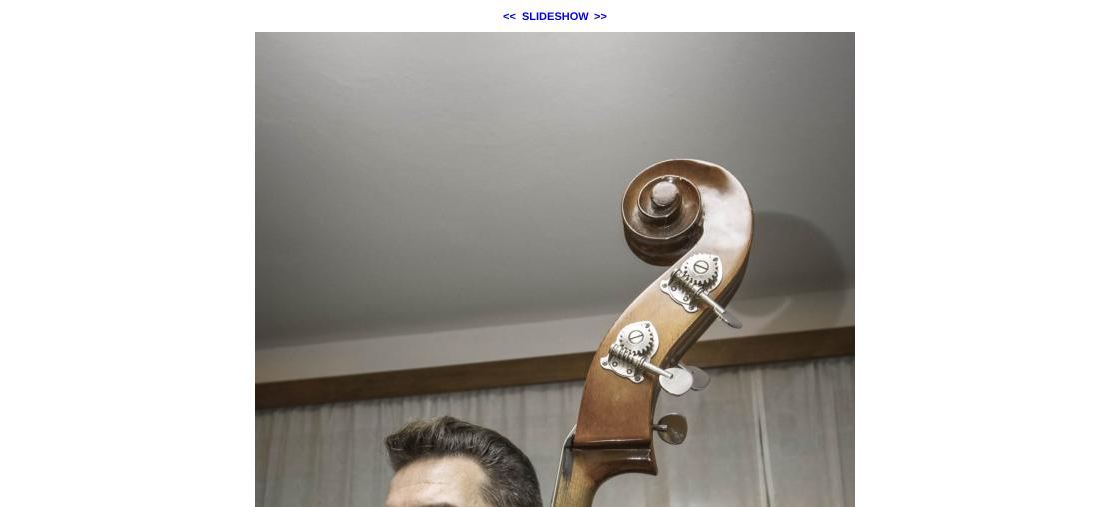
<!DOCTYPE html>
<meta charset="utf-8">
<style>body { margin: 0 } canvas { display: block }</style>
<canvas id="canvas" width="1110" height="507"></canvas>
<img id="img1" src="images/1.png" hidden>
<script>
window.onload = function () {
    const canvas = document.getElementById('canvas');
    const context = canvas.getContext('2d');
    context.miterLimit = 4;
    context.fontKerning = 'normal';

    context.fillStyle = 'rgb(255, 255, 255)';
    context.fillRect(0, 0, 1110, 507);
    context.drawImage(document.getElementById('img1'), 255, 32, 600, 475);
    context.font = 'bold 11px Liberation Sans';
    context.fillStyle = 'rgb(0, 0, 255)';
    context.fillText('<<', 503, 20);
    context.fillText('SLIDESHOW', 522, 20);
    context.fillText('>>', 594, 20);
};
</script>
